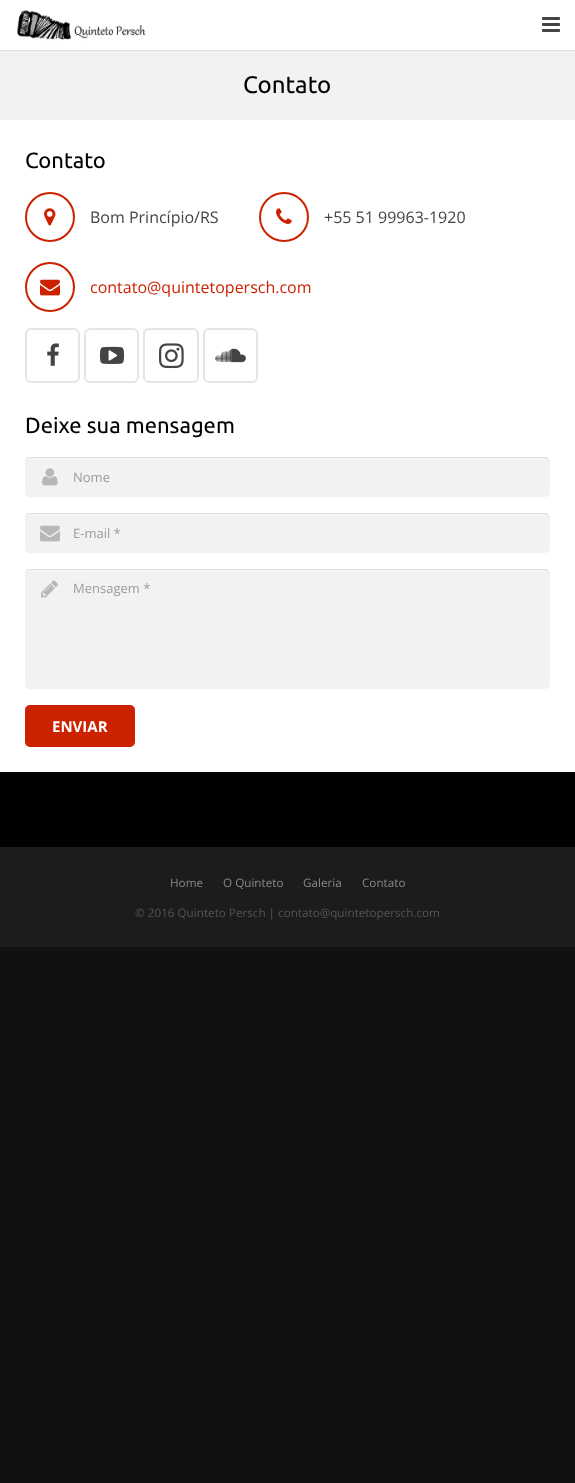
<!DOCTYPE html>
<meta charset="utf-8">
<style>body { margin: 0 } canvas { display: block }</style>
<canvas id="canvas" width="575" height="1483"></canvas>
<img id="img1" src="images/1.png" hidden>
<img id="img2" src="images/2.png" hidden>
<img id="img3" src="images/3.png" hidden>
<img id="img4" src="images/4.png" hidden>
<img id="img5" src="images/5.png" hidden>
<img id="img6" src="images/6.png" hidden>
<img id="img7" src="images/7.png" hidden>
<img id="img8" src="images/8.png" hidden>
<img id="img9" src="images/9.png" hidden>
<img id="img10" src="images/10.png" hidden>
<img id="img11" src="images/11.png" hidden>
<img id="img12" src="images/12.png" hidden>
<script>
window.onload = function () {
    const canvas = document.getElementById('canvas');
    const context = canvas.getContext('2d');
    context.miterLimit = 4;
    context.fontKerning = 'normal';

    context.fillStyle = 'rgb(17, 17, 17)';
    context.fillRect(0, 0, 575, 1483);
    context.fillStyle = 'rgb(255, 255, 255)';
    context.fillRect(0, 120, 575, 652);
    context.fillStyle = 'rgb(223, 223, 223)';
    context.fillRect(0, 50, 575, 1);
    context.fillStyle = 'rgb(255, 255, 255)';
    context.fillRect(0, 0, 575, 50);
    context.drawImage(document.getElementById('img1'), 17, 10, 129, 31);
    context.drawImage(document.getElementById('img2'), 542, 17, 18, 15);
    context.fillStyle = 'rgb(242, 242, 242)';
    context.fillRect(0, 51, 575, 69);
    context.beginPath();
    context.arc(50, 217, 24, 0, 2 * Math.PI);
    context.strokeStyle = 'rgb(204, 34, 0)';
    context.lineWidth = 2;
    context.stroke();
    context.drawImage(document.getElementById('img3'), 44, 208, 12, 18);
    context.beginPath();
    context.arc(284, 217, 24, 0, 2 * Math.PI);
    context.stroke();
    context.drawImage(document.getElementById('img4'), 276, 208, 16, 16);
    context.beginPath();
    context.arc(50, 287, 24, 0, 2 * Math.PI);
    context.stroke();
    context.drawImage(document.getElementById('img5'), 40, 279, 20, 17);
    context.beginPath();
    context.roundRect(26, 329, 53, 53, 5);
    context.strokeStyle = 'rgb(229, 229, 229)';
    context.stroke();
    context.drawImage(document.getElementById('img6'), 47, 343, 12, 23);
    context.beginPath();
    context.roundRect(85, 329, 53, 53, 5);
    context.stroke();
    context.drawImage(document.getElementById('img7'), 100, 346, 24, 18);
    context.beginPath();
    context.roundRect(144, 329, 54, 53, 5);
    context.stroke();
    context.drawImage(document.getElementById('img8'), 159, 343, 25, 26);
    context.beginPath();
    context.roundRect(204, 329, 53, 53, 5);
    context.stroke();
    context.drawImage(document.getElementById('img9'), 215, 348, 31, 15);
    context.beginPath();
    context.roundRect(25, 457, 525, 40, 5);
    context.fill();
    context.drawImage(document.getElementById('img10'), 42, 468, 16, 18);
    context.fillStyle = 'rgba(0, 0, 0, 0.08)';
    context.beginPath();
    context.moveTo(30, 458);
    context.lineTo(545, 458);
    context.bezierCurveTo(548, 458, 550, 460, 550, 463);
    context.lineTo(550, 462);
    context.bezierCurveTo(550, 459, 548, 457, 545, 457);
    context.lineTo(30, 457);
    context.bezierCurveTo(27, 457, 25, 459, 25, 462);
    context.lineTo(25, 463);
    context.bezierCurveTo(25, 460, 27, 458, 30, 458);
    context.closePath();
    context.fill();
    context.fillStyle = 'rgb(242, 242, 242)';
    context.beginPath();
    context.roundRect(25, 513, 525, 40, 5);
    context.fill();
    context.drawImage(document.getElementById('img11'), 40, 525, 20, 17);
    context.fillStyle = 'rgba(0, 0, 0, 0.08)';
    context.beginPath();
    context.moveTo(30, 514);
    context.lineTo(545, 514);
    context.bezierCurveTo(548, 514, 550, 516, 550, 519);
    context.lineTo(550, 518);
    context.bezierCurveTo(550, 515, 548, 513, 545, 513);
    context.lineTo(30, 513);
    context.bezierCurveTo(27, 513, 25, 515, 25, 518);
    context.lineTo(25, 519);
    context.bezierCurveTo(25, 516, 27, 514, 30, 514);
    context.closePath();
    context.fill();
    context.fillStyle = 'rgb(242, 242, 242)';
    context.beginPath();
    context.roundRect(25, 569, 525, 120, 5);
    context.fill();
    context.drawImage(document.getElementById('img12'), 41, 580, 17, 18);
    context.fillStyle = 'rgba(0, 0, 0, 0.08)';
    context.beginPath();
    context.moveTo(30, 570);
    context.lineTo(545, 570);
    context.bezierCurveTo(548, 570, 550, 572, 550, 575);
    context.lineTo(550, 574);
    context.bezierCurveTo(550, 571, 548, 569, 545, 569);
    context.lineTo(30, 569);
    context.bezierCurveTo(27, 569, 25, 571, 25, 574);
    context.lineTo(25, 575);
    context.bezierCurveTo(25, 572, 27, 570, 30, 570);
    context.closePath();
    context.fill();
    context.fillStyle = 'rgb(204, 34, 0)';
    context.beginPath();
    context.roundRect(25, 705, 110, 42, 5);
    context.fill();
    context.fillStyle = 'rgb(0, 0, 0)';
    context.fillRect(0, 772, 575, 75);
    context.fillStyle = 'rgb(28, 28, 28)';
    context.fillRect(0, 847, 575, 100);
    context.font = '24px Ubuntu';
    context.fillStyle = 'rgb(0, 0, 0)';
    context.fillText('Contato', 243, 93);
    context.font = '22px Ubuntu';
    context.fillText('Contato', 25, 168);
    context.font = '16px Open Sans';
    context.fillStyle = 'rgb(68, 68, 68)';
    context.fillText('Bom Princípio/RS', 90, 223);
    context.fillText('+55 51 99963-1920', 324, 223);
    context.fillStyle = 'rgb(204, 34, 0)';
    context.fillText('contato@quintetopersch.com', 90, 293);
    context.font = '22px Ubuntu';
    context.fillStyle = 'rgb(0, 0, 0)';
    context.fillText('Deixe sua mensagem', 25, 433);
    context.font = '13px Open Sans';
    context.fillStyle = 'rgb(155, 155, 155)';
    context.fillText('Nome', 73, 482);
    context.fillText('E-mail *', 73, 538);
    context.fillText('Mensagem *', 73, 593);
    context.font = 'bold 15px Open Sans';
    context.fillStyle = 'rgb(255, 255, 255)';
    context.fillText('ENVIAR', 52, 732);
    context.font = '11.7px Open Sans';
    context.fillStyle = 'rgb(136, 136, 136)';
    context.fillText('Home', 170, 887);
    context.fillText('O Quinteto', 223, 887);
    context.fillText('Galeria', 303, 887);
    context.fillText('Contato', 362, 887);
    context.fillStyle = 'rgb(85, 85, 85)';
    context.fillText('© 2016 Quinteto Persch | contato@quintetopersch.com', 135, 917);
};
</script>
